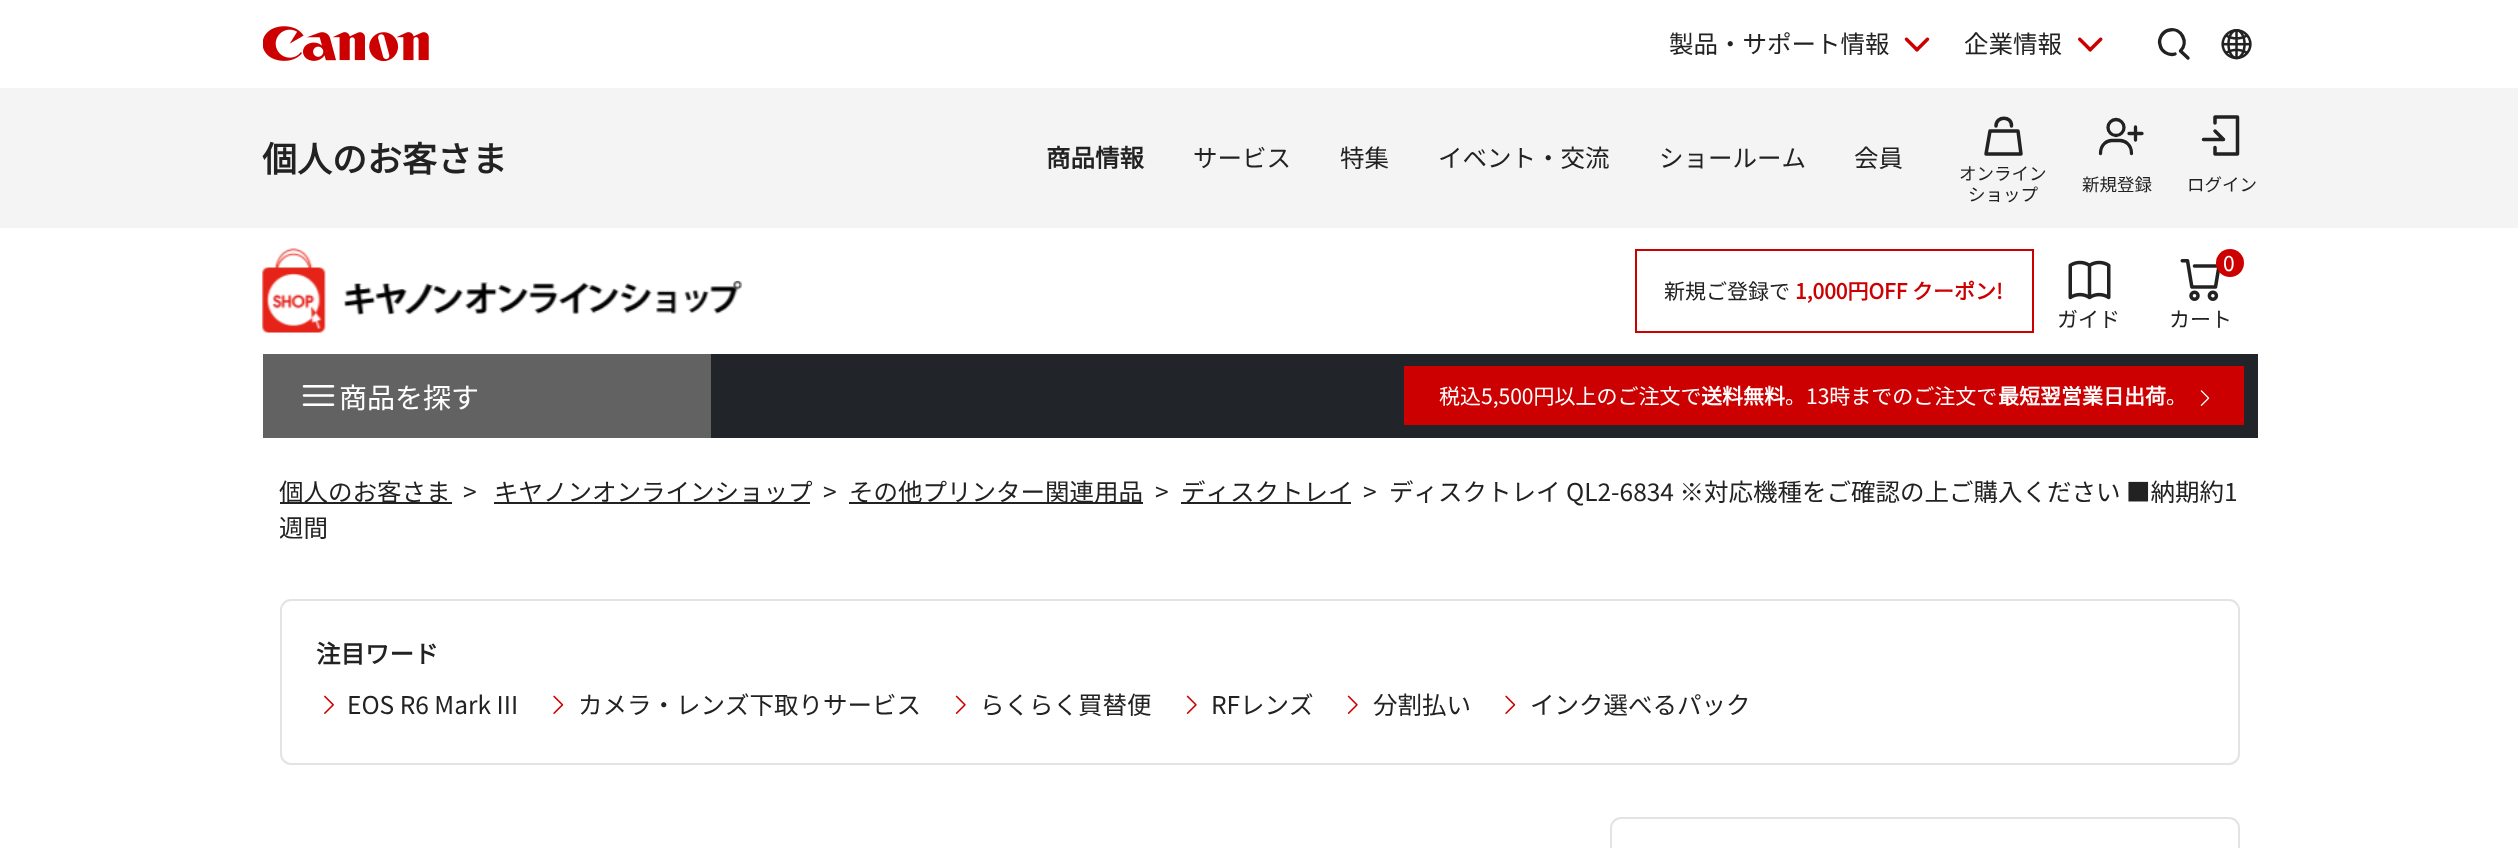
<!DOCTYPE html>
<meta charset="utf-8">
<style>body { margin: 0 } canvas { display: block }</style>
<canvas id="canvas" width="2518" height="848"></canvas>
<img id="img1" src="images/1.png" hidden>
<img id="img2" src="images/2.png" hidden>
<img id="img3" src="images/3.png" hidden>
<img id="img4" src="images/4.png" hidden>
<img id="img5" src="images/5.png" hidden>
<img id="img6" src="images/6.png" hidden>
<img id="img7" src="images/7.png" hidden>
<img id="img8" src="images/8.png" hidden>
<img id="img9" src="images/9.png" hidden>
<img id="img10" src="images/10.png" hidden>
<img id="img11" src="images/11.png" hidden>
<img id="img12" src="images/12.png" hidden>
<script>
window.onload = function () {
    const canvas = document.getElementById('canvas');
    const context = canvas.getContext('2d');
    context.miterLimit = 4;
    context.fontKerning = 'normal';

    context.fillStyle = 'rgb(255, 255, 255)';
    context.fillRect(0, 0, 2518, 848);
    context.drawImage(document.getElementById('img1'), 263, 26, 166, 35);
    context.drawImage(document.getElementById('img2'), 1904, 37, 26, 15);
    context.drawImage(document.getElementById('img3'), 2078, 37, 25, 15);
    context.beginPath();
    context.moveTo(2175, 54);
    context.bezierCurveTo(2168.5, 56, 2161, 51.5, 2160, 44.5);
    context.bezierCurveTo(2159, 41.5, 2160, 38, 2161.5, 35.5);
    context.bezierCurveTo(2163.5, 32.5, 2166.5, 30.5, 2169.5, 30);
    context.bezierCurveTo(2181.5, 27.5, 2189, 42.5, 2180.5, 51);
    context.moveTo(2188, 58);
    context.lineTo(2180.5, 51);
    context.strokeStyle = 'rgb(34, 34, 34)';
    context.lineWidth = 3.4;
    context.lineCap = 'round';
    context.lineJoin = 'round';
    context.stroke();
    context.drawImage(document.getElementById('img4'), 2221, 29, 31, 31);
    context.fillStyle = 'rgb(244, 244, 244)';
    context.fillRect(0, 88, 2518, 140);
    context.beginPath();
    context.moveTo(1990, 131);
    context.lineTo(2018, 131);
    context.lineTo(2021, 154);
    context.lineTo(1986, 154);
    context.closePath();
    context.lineWidth = 3.5;
    context.lineCap = 'butt';
    context.stroke();
    context.beginPath();
    context.moveTo(1996, 126);
    context.bezierCurveTo(1996, 115.5, 2012, 115.5, 2011.5, 126);
    context.lineCap = 'round';
    context.stroke();
    context.beginPath();
    context.arc(2116, 127.5, 8, 0, 2 * Math.PI);
    context.lineWidth = 3.3;
    context.stroke();
    context.beginPath();
    context.moveTo(2100.5, 153.5);
    context.bezierCurveTo(2100.5, 144.5, 2107, 140.5, 2111.5, 140.5);
    context.lineTo(2120, 140.5);
    context.bezierCurveTo(2125, 140.5, 2131.5, 144.5, 2131.5, 153.5);
    context.stroke();
    context.beginPath();
    context.moveTo(2129, 133.5);
    context.lineTo(2142, 133.5);
    context.moveTo(2135.5, 127);
    context.lineTo(2135.5, 140);
    context.lineJoin = 'miter';
    context.stroke();
    context.beginPath();
    context.moveTo(2203.5, 139.5);
    context.lineTo(2223.5, 139.5);
    context.lineTo(2215, 131);
    context.moveTo(2215, 123);
    context.lineTo(2215, 117);
    context.lineTo(2237.5, 117);
    context.lineTo(2237.5, 154);
    context.lineTo(2215, 154);
    context.lineTo(2215, 147.5);
    context.lineWidth = 3.5;
    context.lineJoin = 'round';
    context.stroke();
    context.drawImage(document.getElementById('img5'), 262, 248, 480, 85);
    context.fillStyle = 'rgb(33, 37, 41)';
    context.fillRect(711, 354, 1547, 84);
    context.strokeStyle = 'rgb(204, 0, 0)';
    context.lineWidth = 2;
    context.lineJoin = 'miter';
    context.strokeRect(1636, 250, 397, 82);
    context.drawImage(document.getElementById('img6'), 2068, 260, 43, 40);
    context.drawImage(document.getElementById('img7'), 2180, 259, 40, 42);
    context.fillStyle = 'rgb(204, 0, 0)';
    context.beginPath();
    context.arc(2230, 263, 14, 0, 2 * Math.PI);
    context.fill();
    context.fillStyle = 'rgb(98, 98, 98)';
    context.fillRect(263, 354, 448, 84);
    context.drawImage(document.getElementById('img8'), 302, 385, 33, 21);
    context.fillStyle = 'rgb(204, 0, 0)';
    context.fillRect(1404, 366, 840, 59);
    context.drawImage(document.getElementById('img9'), 2200, 390, 10, 16);
    context.fillStyle = 'rgb(34, 34, 34)';
    context.fillRect(280, 502, 172, 2);
    context.fillRect(494, 502, 316, 2);
    context.fillRect(849, 502, 294, 2);
    context.fillRect(1181, 502, 170, 2);
    context.beginPath();
    context.roundRect(281, 600, 1958, 164, 10);
    context.strokeStyle = 'rgb(227, 227, 227)';
    context.stroke();
    context.drawImage(document.getElementById('img10'), 324, 695, 10, 19);
    context.drawImage(document.getElementById('img11'), 553, 695, 11, 19);
    context.drawImage(document.getElementById('img12'), 955, 695, 11, 19);
    context.drawImage(document.getElementById('img12'), 1186, 695, 11, 19);
    context.drawImage(document.getElementById('img12'), 1347, 695, 11, 19);
    context.drawImage(document.getElementById('img11'), 1505, 695, 11, 19);
    context.beginPath();
    context.roundRect(1611, 818, 628, 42, 10);
    context.stroke();
    context.font = '100 24.5px Noto Sans JP';
    context.fillText('製品・サポート情報', 1669, 53);
    context.fillText('企業情報', 1964, 53);
    context.font = 'bold 35px Noto Sans JP';
    context.fillText('個人のお客さま', 262, 172);
    context.font = 'bold 24.5px Noto Sans JP';
    context.fillText('商品情報', 1046, 167);
    context.font = '100 24.5px Noto Sans JP';
    context.fillText('サービス', 1193, 167);
    context.fillText('特集', 1340, 167);
    context.fillText('イベント・交流', 1438, 167);
    context.fillText('ショールーム', 1659, 167);
    context.fillText('会員', 1854, 167);
    context.font = '100 17.5px Noto Sans JP';
    context.fillText('オンライン', 1959, 180);
    context.fillText('ショップ', 1968, 201);
    context.fillText('新規登録', 2082, 191);
    context.fillText('ログイン', 2187, 191);
    context.font = '100 21px Noto Sans JP';
    context.fillText('新規ご登録で', 1664, 299);
    context.font = 'bold 21px Noto Sans JP';
    context.fillStyle = 'rgb(204, 0, 0)';
    context.fillText('1,000円OFF クーポン!', 1795, 299);
    context.font = '100 21px Noto Sans JP';
    context.fillStyle = 'rgb(34, 34, 34)';
    context.fillText('ガイド', 2057, 327);
    context.fillStyle = 'rgb(255, 255, 255)';
    context.fillText('0', 2223, 271);
    context.fillStyle = 'rgb(34, 34, 34)';
    context.fillText('カート', 2169, 327);
    context.font = '100 28px Noto Sans JP';
    context.fillStyle = 'rgb(255, 255, 255)';
    context.fillText('商品を探す', 339, 408);
    context.font = '100 21px Noto Sans JP';
    context.fillText('税込5,500円以上のご注文で', 1439, 404);
    context.font = 'bold 21px Noto Sans JP';
    context.fillText('送料無料', 1701, 404);
    context.font = '100 21px Noto Sans JP';
    context.fillText('。13時までのご注文で', 1785, 404);
    context.font = 'bold 21px Noto Sans JP';
    context.fillText('最短翌営業日出荷', 1998, 404);
    context.font = '100 21px Noto Sans JP';
    context.fillText('。', 2166, 404);
    context.font = '100 24.5px Noto Sans JP';
    context.fillStyle = 'rgb(34, 34, 34)';
    context.fillText('個人のお客さま', 279, 501);
    context.fillText('>', 463, 501);
    context.fillText('キヤノンオンラインショップ', 494, 501);
    context.fillText('>', 823, 501);
    context.fillText('その他プリンター関連用品', 849, 501);
    context.fillText('>', 1155, 501);
    context.fillText('ディスクトレイ', 1181, 501);
    context.fillText('>', 1363, 501);
    context.fillText('ディスクトレイ QL2-6834 ※対応機種をご確認の上ご購入ください ■納期約1', 1389, 501);
    context.fillText('週間', 279, 537);
    context.font = 'bold 24.5px Noto Sans JP';
    context.fillText('注目ワード', 316, 663);
    context.font = '100 24.5px Noto Sans JP';
    context.fillText('EOS R6 Mark III', 347, 714);
    context.fillText('カメラ・レンズ下取りサービス', 578, 714);
    context.fillText('らくらく買替便', 980, 714);
    context.fillText('RFレンズ', 1211, 714);
    context.fillText('分割払い', 1373, 714);
    context.fillText('インク選べるパック', 1530, 714);
};
</script>
